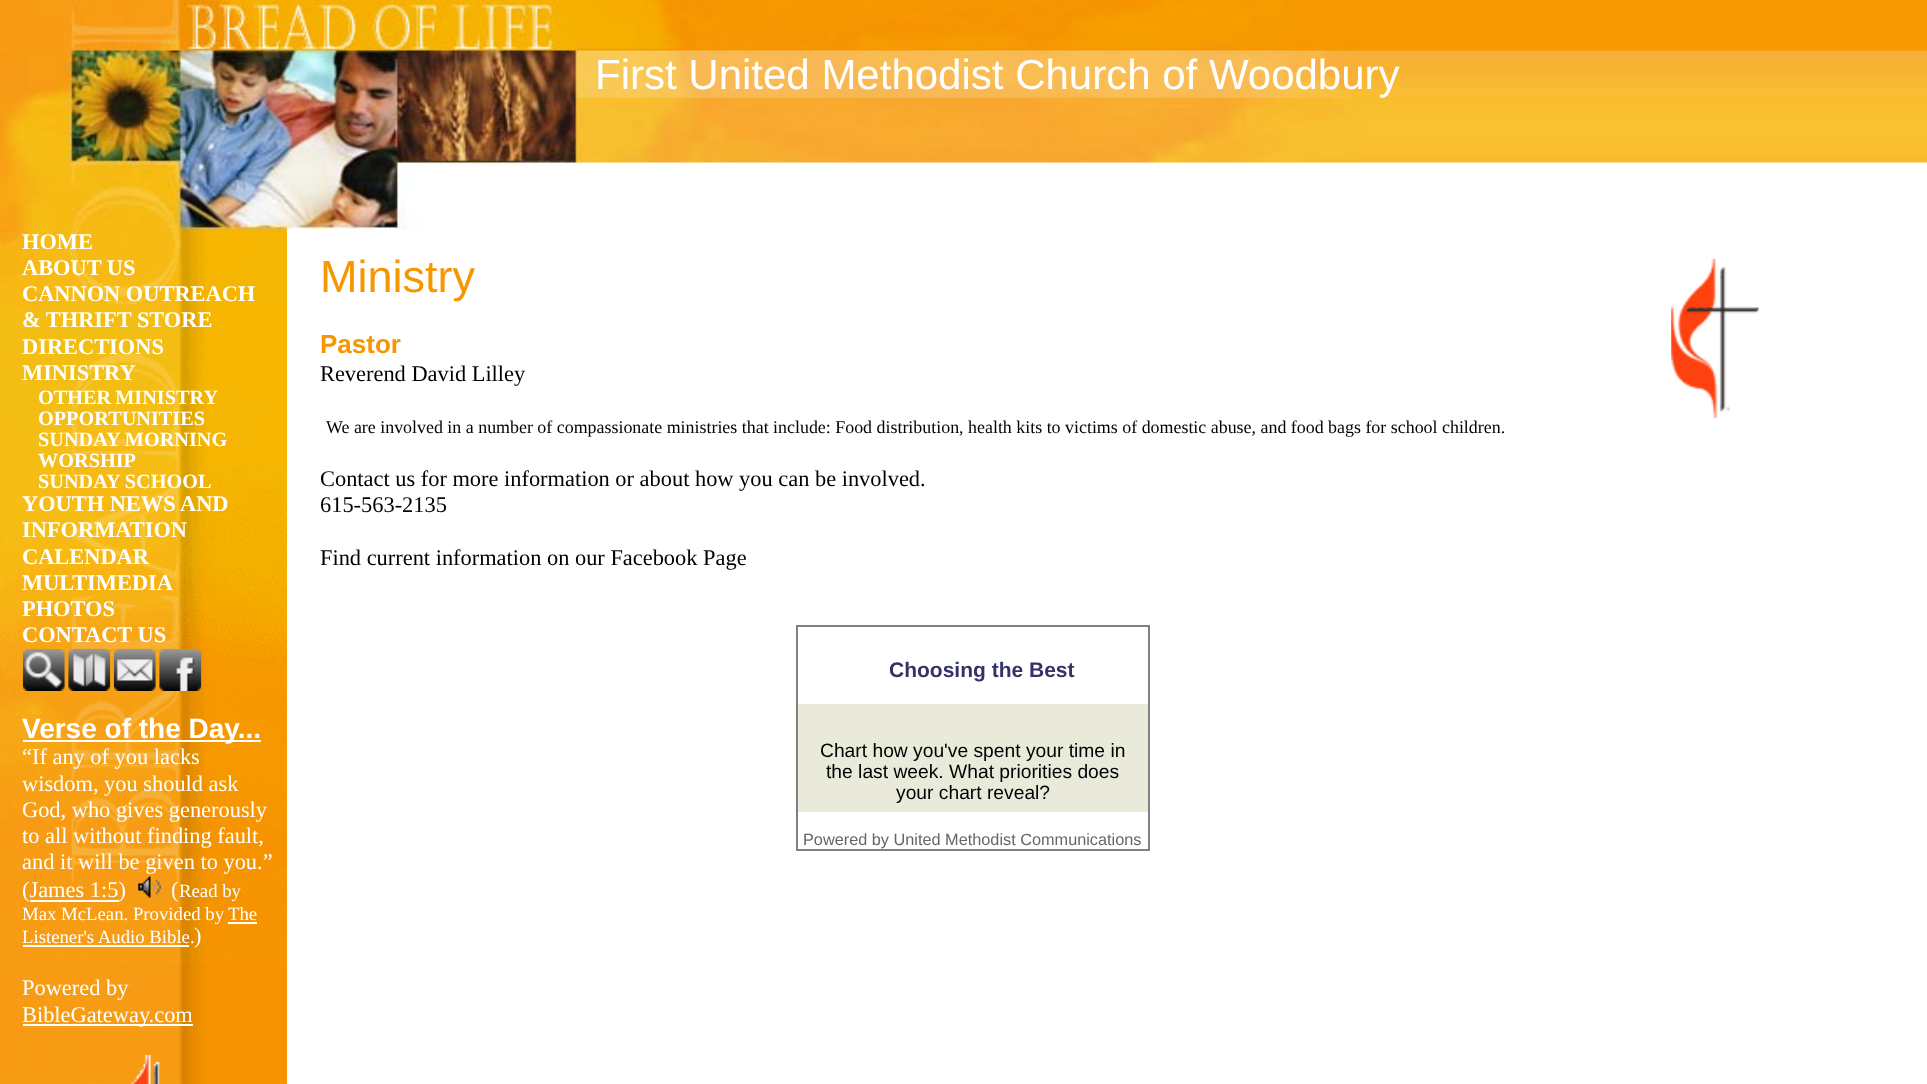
<!DOCTYPE html>
<meta charset="utf-8">
<style>body { margin: 0 } canvas { display: block }</style>
<canvas id="canvas" width="1927" height="1084"></canvas>
<img id="img1" src="images/1.png" hidden>
<img id="img2" src="images/2.png" hidden>
<img id="img3" src="images/3.png" hidden>
<img id="img4" src="images/4.png" hidden>
<img id="img5" src="images/5.png" hidden>
<img id="img6" src="images/6.png" hidden>
<img id="img7" src="images/7.png" hidden>
<img id="img8" src="images/8.png" hidden>
<img id="img9" src="images/9.png" hidden>
<img id="img10" src="images/10.png" hidden>
<img id="img11" src="images/11.png" hidden>
<script>
window.onload = function () {
    const canvas = document.getElementById('canvas');
    const context = canvas.getContext('2d');
    context.miterLimit = 4;
    context.fontKerning = 'normal';

    context.fillStyle = 'rgb(255, 255, 255)';
    context.fillRect(0, 0, 1927, 1084);
    context.drawImage(document.getElementById('img1'), 1365, 0, 562, 229);
    context.drawImage(document.getElementById('img2'), 0, 0, 1365, 229);
    context.drawImage(document.getElementById('img3'), 0, 964, 287, 120);
    context.drawImage(document.getElementById('img4'), 0, 229, 287, 735);
    context.drawImage(document.getElementById('img5'), 22, 649, 43, 42);
    context.drawImage(document.getElementById('img6'), 68, 649, 43, 42);
    context.drawImage(document.getElementById('img7'), 113, 649, 43, 42);
    context.drawImage(document.getElementById('img8'), 159, 649, 43, 42);
    context.fillRect(23, 740, 238, 2);
    context.drawImage(document.getElementById('img9'), 138, 876, 23, 22);
    context.fillRect(30, 900, 89, 2);
    context.fillRect(228, 922, 29, 2);
    context.fillRect(23, 945, 166, 2);
    context.fillRect(23, 1024, 170, 2);
    context.drawImage(document.getElementById('img10'), 130, 1055, 30, 29);
    context.fillStyle = 'rgb(128, 128, 128)';
    context.fillRect(796, 625, 354, 2);
    context.fillRect(1148, 625, 2, 226);
    context.fillRect(796, 849, 354, 2);
    context.fillRect(796, 625, 2, 226);
    context.fillStyle = 'rgb(234, 234, 218)';
    context.fillRect(798, 704, 350, 108);
    context.drawImage(document.getElementById('img11'), 1671, 258, 88, 160);
    context.font = '42px Liberation Sans';
    context.fillStyle = 'rgb(255, 255, 255)';
    context.fillText('First United Methodist Church of Woodbury', 595, 89);
    context.font = 'bold 22.4px Liberation Serif';
    context.fillText('HOME', 22, 249);
    context.fillText('ABOUT US', 22, 275);
    context.fillText('CANNON OUTREACH', 22, 301);
    context.fillText('& THRIFT STORE', 22, 327);
    context.fillText('DIRECTIONS', 22, 354);
    context.fillText('MINISTRY', 22, 380);
    context.wordSpacing = '-1px';
    context.font = 'bold 20.25px Liberation Serif';
    context.fillText('OTHER MINISTRY', 38, 404);
    context.wordSpacing = '0px';
    context.fillText('OPPORTUNITIES', 38, 425);
    context.fillText('SUNDAY MORNING', 38, 446);
    context.fillText('WORSHIP', 38, 467);
    context.fillText('SUNDAY SCHOOL', 38, 488);
    context.font = 'bold 22.4px Liberation Serif';
    context.fillText('YOUTH NEWS AND', 22, 511);
    context.fillText('INFORMATION', 22, 537);
    context.fillText('CALENDAR', 22, 564);
    context.fillText('MULTIMEDIA', 22, 590);
    context.fillText('PHOTOS', 22, 616);
    context.fillText('CONTACT US', 22, 642);
    context.font = 'bold 28px Liberation Sans';
    context.fillText('Verse of the Day...', 22, 738);
    context.font = '22.4px Liberation Serif';
    context.fillText('“If any of you lacks', 22, 764);
    context.fillText('wisdom, you should ask', 22, 791);
    context.fillText('God, who gives generously', 22, 817);
    context.fillText('to all without finding fault,', 22, 843);
    context.fillText('and it will be given to you.”', 22, 869);
    context.fillText('(James 1:5)', 22, 897);
    context.fillText('(', 171, 897);
    context.font = '18.75px Liberation Serif';
    context.fillText('Read by', 179, 897);
    context.fillText('Max McLean. Provided by', 22, 920);
    context.fillText('The', 228, 920);
    context.fillText('Listener\'s Audio Bible.', 22, 943);
    context.font = '22.4px Liberation Serif';
    context.fillText(')', 194, 943);
    context.fillText('Powered by', 22, 995);
    context.fillText('BibleGateway.com', 22, 1022);
    context.font = '45px Liberation Sans';
    context.fillStyle = 'rgb(246, 150, 1)';
    context.fillText('Ministry', 320, 292);
    context.font = 'bold 26px Liberation Sans';
    context.fillText('Pastor', 320, 353);
    context.font = '22.4px Liberation Serif';
    context.fillStyle = 'rgb(0, 0, 0)';
    context.fillText('Reverend David Lilley', 320, 381);
    context.font = '17.92px Liberation Serif';
    context.fillText('We are involved in a number of compassionate ministries that include: Food distribution, health kits to victims of domestic abuse, and food bags for school children.', 326, 433);
    context.font = '22.4px Liberation Serif';
    context.fillText('Contact us for more information or about how you can be involved.', 320, 486);
    context.fillText('615-563-2135', 320, 512);
    context.fillText('Find current information on our Facebook Page', 320, 565);
    context.font = 'bold 21px Liberation Sans';
    context.fillStyle = 'rgb(51, 51, 102)';
    context.fillText('Choosing the Best', 889, 677);
    context.font = '19.25px Liberation Sans';
    context.fillStyle = 'rgb(0, 0, 0)';
    context.fillText('Chart how you\'ve spent your time in', 820, 757);
    context.fillText('the last week. What priorities does', 826, 778);
    context.fillText('your chart reveal?', 896, 799);
    context.font = '16.3px Liberation Sans';
    context.fillStyle = 'rgb(102, 102, 102)';
    context.fillText('Powered by United Methodist Communications', 803, 845);
};
</script>
